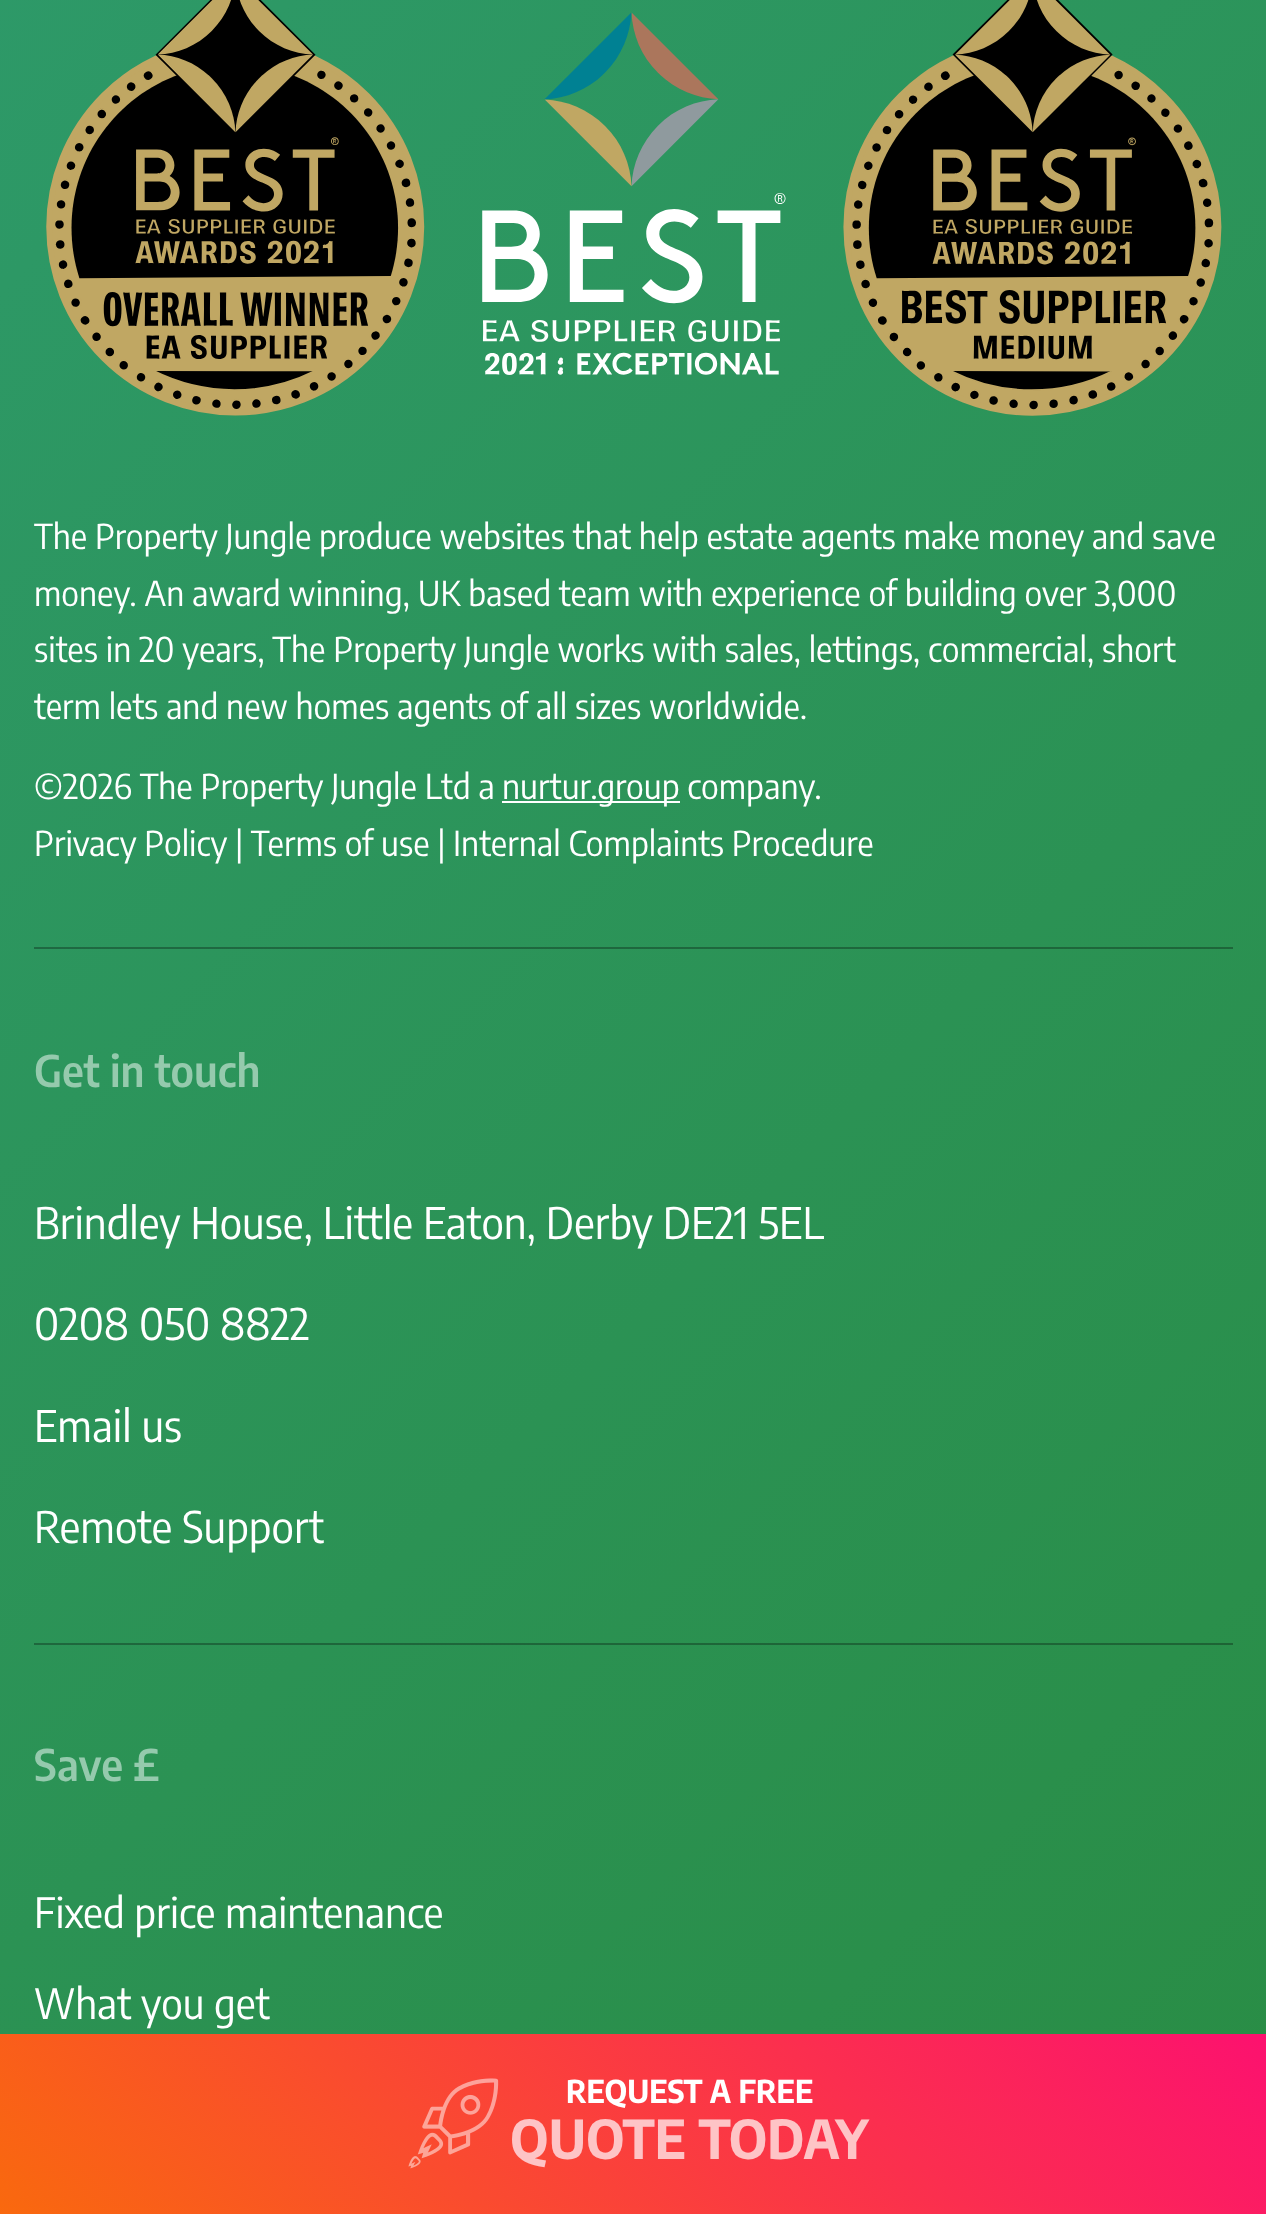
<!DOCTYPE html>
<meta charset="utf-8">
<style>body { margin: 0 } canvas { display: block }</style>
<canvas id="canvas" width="1266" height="2214"></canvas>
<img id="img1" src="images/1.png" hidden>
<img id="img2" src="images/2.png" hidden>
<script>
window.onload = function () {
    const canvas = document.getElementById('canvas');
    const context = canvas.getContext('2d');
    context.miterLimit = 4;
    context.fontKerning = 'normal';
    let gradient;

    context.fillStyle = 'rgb(255, 255, 255)';
    context.fillRect(0, 0, 1266, 2214);
    gradient = context.createLinearGradient(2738, 1760, -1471, -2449);
    gradient.addColorStop(0, 'rgb(40, 137, 58)');
    gradient.addColorStop(1, 'rgb(50, 167, 144)');
    context.fillStyle = gradient;
    context.fillRect(0, 0, 1266, 2034);
    gradient = context.createLinearGradient(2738, 1760, -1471, -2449);
    gradient.addColorStop(0, 'rgb(28, 96, 41)');
    gradient.addColorStop(1, 'rgb(35, 117, 101)');
    context.fillStyle = gradient;
    context.fillRect(34, 1643, 1199, 2);
    context.fillRect(34, 947, 1199, 2);
    context.drawImage(document.getElementById('img1'), 46, 0, 1176, 416);
    context.fillStyle = 'rgb(255, 255, 255)';
    context.fillRect(502, 801, 178, 2);
    gradient = context.createLinearGradient(272, 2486, 995, 1762);
    gradient.addColorStop(0, 'rgb(249, 105, 14)');
    gradient.addColorStop(1, 'rgb(252, 17, 111)');
    context.fillStyle = gradient;
    context.fillRect(0, 2034, 1266, 180);
    context.drawImage(document.getElementById('img2'), 408, 2078, 91, 91);
    context.font = '34.2px Encode Sans Semi Condensed';
    context.fillStyle = 'rgb(255, 255, 255)';
    context.fillText('The Property Jungle produce websites that help estate agents make money and save', 34, 549);
    context.fillText('money. An award winning, UK based team with experience of building over 3,000', 34, 606);
    context.fillText('sites in 20 years, The Property Jungle works with sales, lettings, commercial, short', 34, 662);
    context.fillText('term lets and new homes agents of all sizes worldwide.', 34, 719);
    context.fillText('©2026 The Property Jungle Ltd a', 34, 799);
    context.fillText('nurtur.group company.', 502, 799);
    context.fillText('Privacy Policy | Terms of use | Internal Complaints Procedure', 34, 856);
    context.font = '600 43.25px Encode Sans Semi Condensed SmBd';
    context.fillStyle = 'rgb(149, 202, 173)';
    context.fillText('Get in touch', 34, 1087);
    context.font = '43.25px Encode Sans Semi Condensed';
    context.fillStyle = 'rgb(255, 255, 255)';
    context.fillText('Brindley House, Little Eaton, Derby DE21 5EL', 34, 1239);
    context.fillText('0208 050 8822', 34, 1340);
    context.fillText('Email us', 34, 1442);
    context.fillText('Remote Support', 34, 1543);
    context.font = '600 43.25px Encode Sans Semi Condensed SmBd';
    context.fillStyle = 'rgb(149, 202, 173)';
    context.fillText('Save £', 34, 1781);
    context.font = '41.5px Encode Sans Semi Condensed';
    context.fillStyle = 'rgb(255, 255, 255)';
    context.fillText('Fixed price maintenance', 34, 1928);
    context.fillText('What you get', 34, 2019);
    context.font = 'bold 31.5px Encode Sans Semi Condensed';
    context.fillText('REQUEST A FREE', 566, 2103);
    context.font = 'bold 53.5px Encode Sans Semi Condensed';
    context.fillStyle = 'rgb(254, 196, 198)';
    context.fillText('QUOTE TODAY', 510, 2159);
};
</script>
